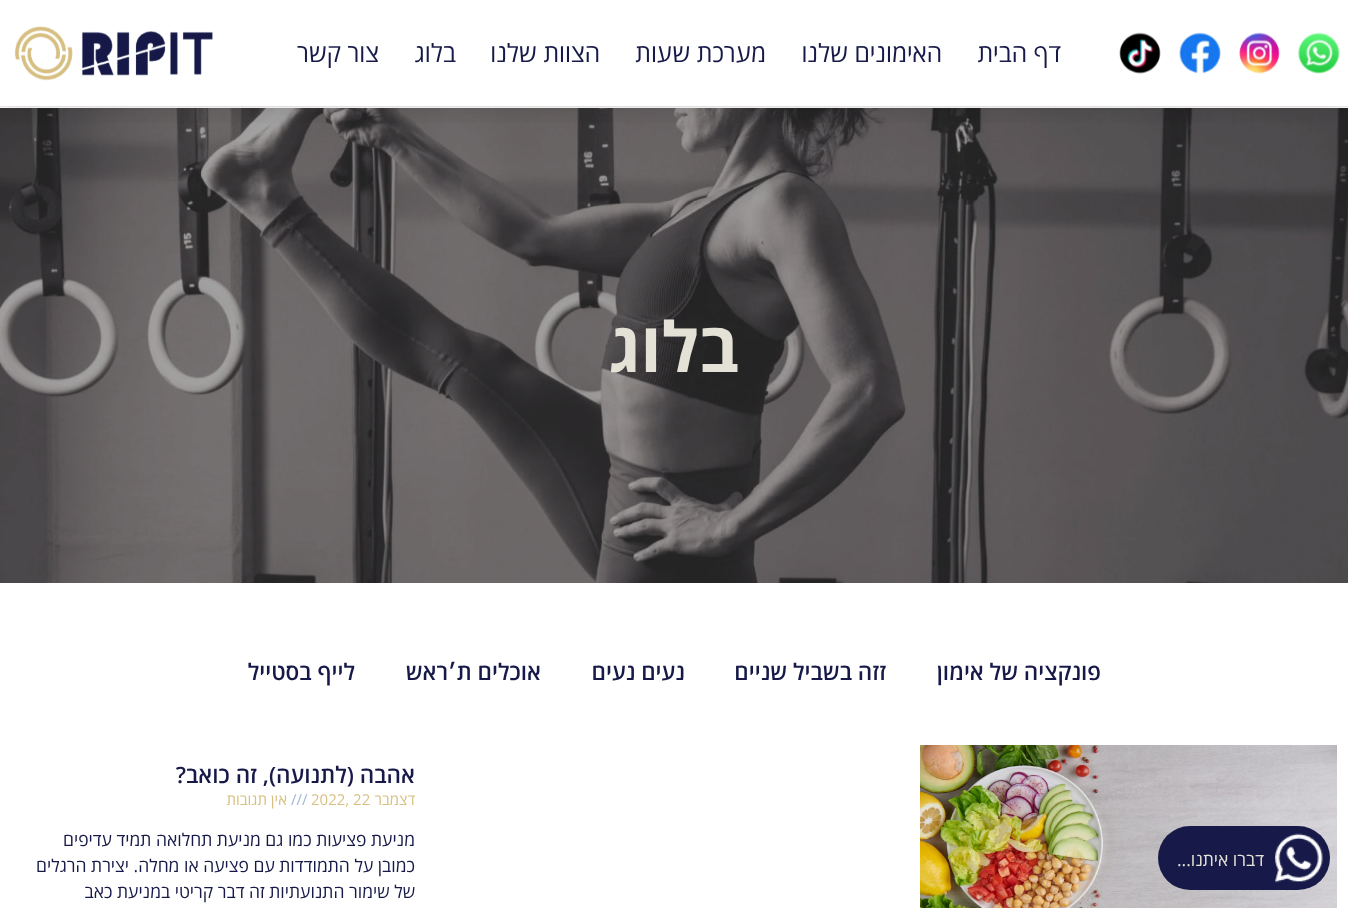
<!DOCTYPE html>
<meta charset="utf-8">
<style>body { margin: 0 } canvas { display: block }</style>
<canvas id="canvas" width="1348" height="908"></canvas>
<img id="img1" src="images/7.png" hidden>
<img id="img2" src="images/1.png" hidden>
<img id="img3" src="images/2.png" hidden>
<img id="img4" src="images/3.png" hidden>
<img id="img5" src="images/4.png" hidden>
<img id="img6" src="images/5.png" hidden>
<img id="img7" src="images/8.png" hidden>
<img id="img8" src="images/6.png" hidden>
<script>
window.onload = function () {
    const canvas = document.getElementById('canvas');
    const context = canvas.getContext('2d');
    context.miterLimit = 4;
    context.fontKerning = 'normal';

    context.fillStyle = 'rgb(255, 255, 255)';
    context.fillRect(0, 0, 1348, 908);
    context.fillStyle = 'rgb(241, 241, 241)';
    context.fillRect(0, 106, 1348, 1);
    context.drawImage(document.getElementById('img1'), 0, 108, 1348, 475);
    context.save();
    context.beginPath();
    context.rect(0, 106, 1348, 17);
    context.clip();
    context.fillStyle = 'rgba(0, 0, 0, 0.15)';
    context.filter = 'blur(15px)';
    context.beginPath();
    context.rect(0, 0, 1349, 106);
    context.fill();
    context.filter = 'none';
    context.restore();
    context.drawImage(document.getElementById('img2'), 1297, 32, 43, 42);
    context.drawImage(document.getElementById('img3'), 1239, 32, 41, 42);
    context.drawImage(document.getElementById('img4'), 1179, 32, 42, 42);
    context.drawImage(document.getElementById('img5'), 1119, 32, 42, 42);
    context.drawImage(document.getElementById('img6'), 14, 26, 199, 55);
    context.drawImage(document.getElementById('img7'), 920, 745, 417, 163);
    context.fillStyle = 'rgb(23, 26, 72)';
    context.beginPath();
    context.roundRect(1158, 826, 172, 64, 32);
    context.fill();
    context.drawImage(document.getElementById('img8'), 1275, 833, 48, 50);
    context.direction = 'rtl';
    context.font = '25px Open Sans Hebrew';
    context.fillText('דף הבית', 1061, 62);
    context.fillText('האימונים שלנו', 942, 62);
    context.fillText('מערכת שעות', 766, 62);
    context.fillText('הצוות שלנו', 600, 62);
    context.fillText('בלוג', 456, 62);
    context.fillText('צור קשר', 379, 62);
    context.font = '17.5px Open Sans';
    context.fillStyle = 'rgb(228, 226, 214)';
    context.fillText('דברו איתנו...', 1264, 866);
    context.font = 'bold 69px Open Sans';
    context.fillText('בלוג', 739, 372);
    context.font = '600 22.5px Open Sans';
    context.fillStyle = 'rgb(23, 26, 72)';
    context.fillText('פונקציה של אימון', 1101, 680);
    context.fillText('זזה בשביל שניים', 886, 680);
    context.fillText('נעים נעים', 685, 680);
    context.fillText('אוכלים ת', 541, 680);
    context.font = 'bold 22.5px Liberation Sans';
    context.fillText('׳', 457, 680);
    context.font = '600 22.5px Open Sans';
    context.fillText('ראש', 448, 680);
    context.fillText('לייף בסטייל', 355, 680);
    context.fillText('אהבה (לתנועה), זה כואב?', 415, 783);
    context.font = '15px Open Sans';
    context.fillStyle = 'rgb(215, 192, 130)';
    context.fillText('דצמבר', 415, 805);
    context.direction = 'ltr';
    context.fillText('2022, 22', 311, 805);
    context.fillStyle = 'rgb(161, 182, 212)';
    context.fillText('///', 291, 805);
    context.direction = 'rtl';
    context.fillStyle = 'rgb(215, 192, 130)';
    context.fillText('אין תגובות', 287, 805);
    context.font = '17.5px Open Sans';
    context.fillStyle = 'rgb(23, 26, 72)';
    context.fillText('מניעת פציעות כמו גם מניעת תחלואה תמיד עדיפים', 415, 846);
    context.fillText('כמובן על התמודדות עם פציעה או מחלה. יצירת הרגלים', 415, 872);
    context.fillText('של שימור התנועתיות זה דבר קריטי במניעת כאב', 415, 898);
};
</script>
